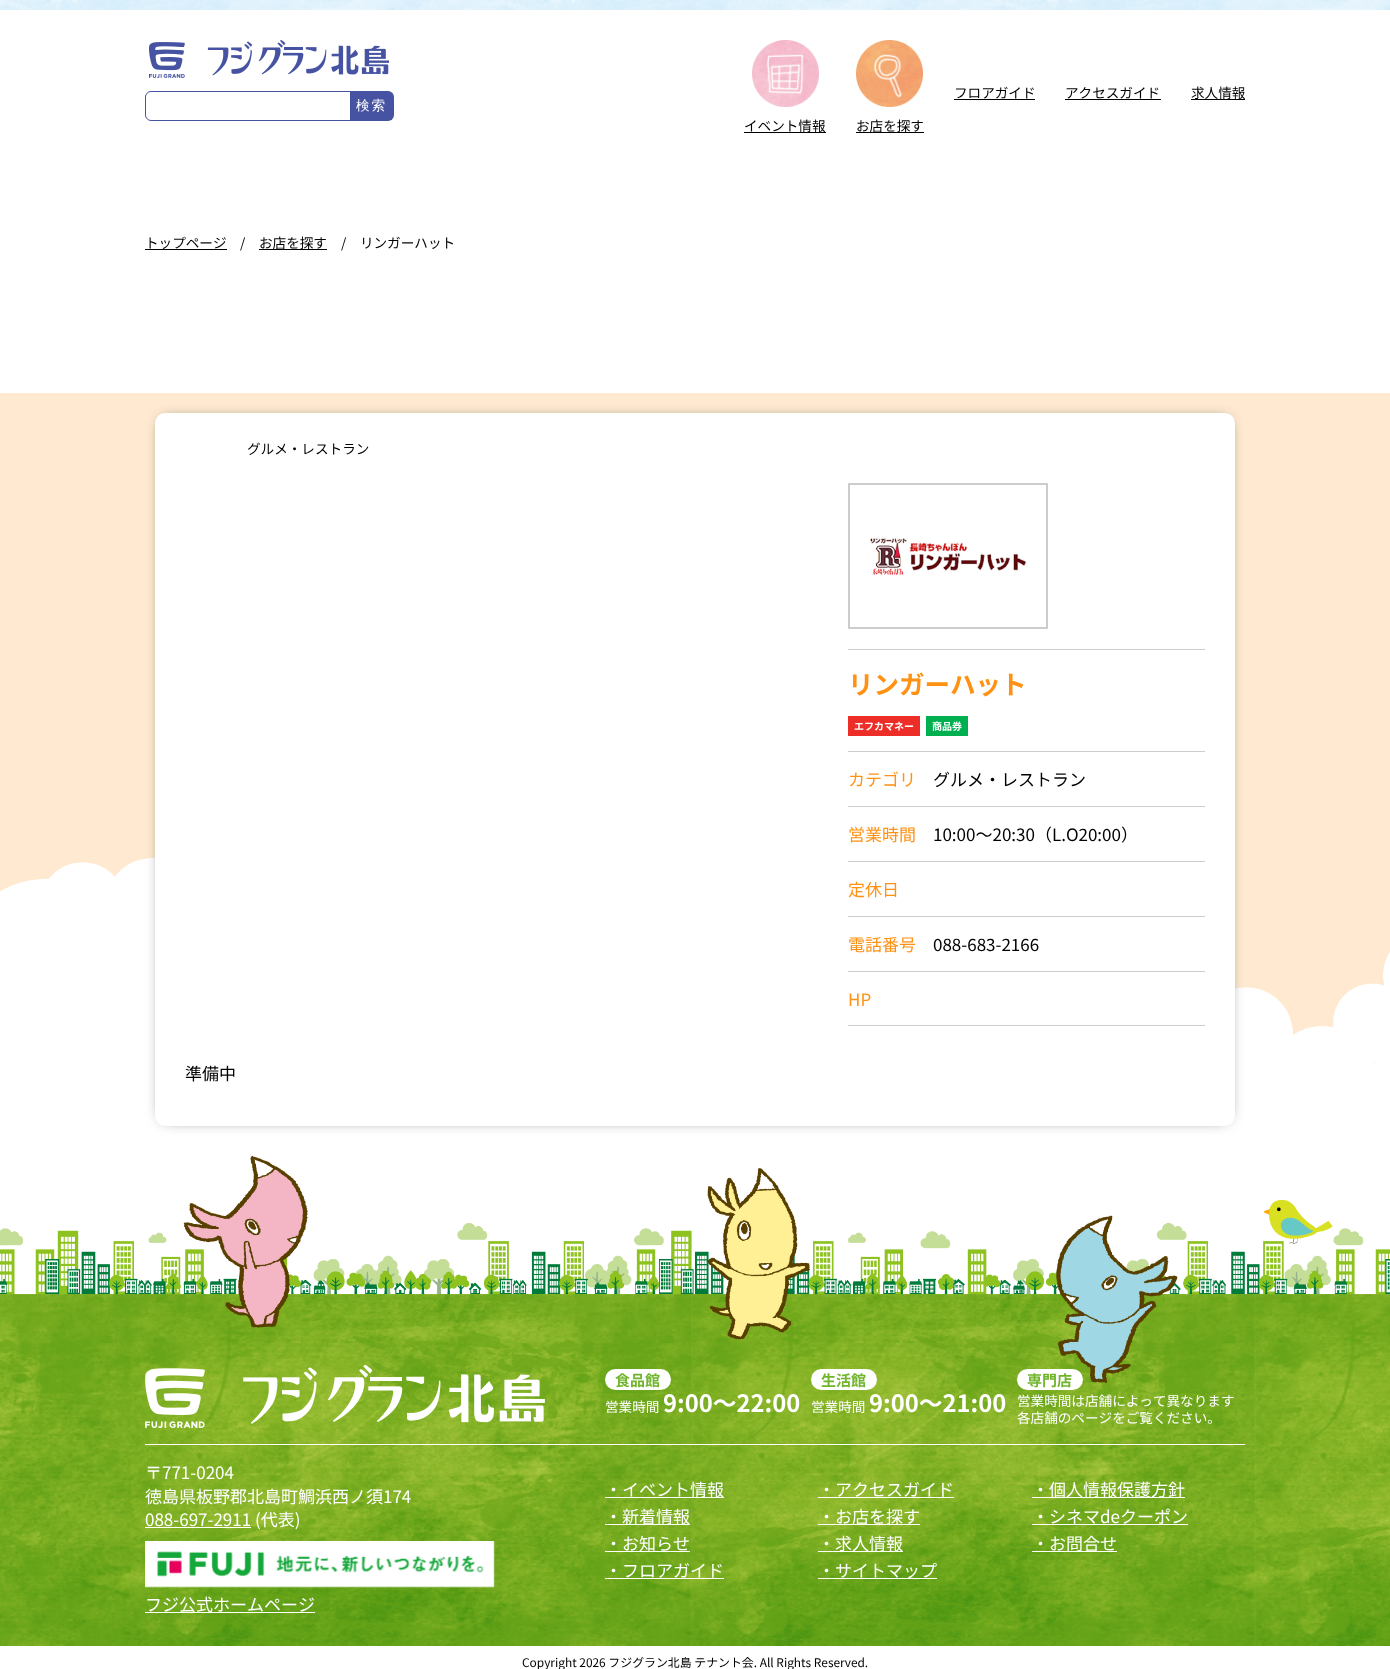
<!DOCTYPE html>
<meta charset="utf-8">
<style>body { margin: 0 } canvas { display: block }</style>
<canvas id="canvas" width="1390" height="1669"></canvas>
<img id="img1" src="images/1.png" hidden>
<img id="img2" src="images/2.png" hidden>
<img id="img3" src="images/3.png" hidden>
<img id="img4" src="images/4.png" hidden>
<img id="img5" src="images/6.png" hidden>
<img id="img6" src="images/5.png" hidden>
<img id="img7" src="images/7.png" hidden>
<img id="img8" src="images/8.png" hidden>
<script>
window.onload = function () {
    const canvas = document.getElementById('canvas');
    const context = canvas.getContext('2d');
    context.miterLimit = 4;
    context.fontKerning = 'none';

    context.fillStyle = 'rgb(255, 255, 255)';
    context.fillRect(0, 0, 1390, 1669);
    context.drawImage(document.getElementById('img1'), 0, 0, 1390, 10);
    context.drawImage(document.getElementById('img2'), 149, 40, 240, 38);
    context.beginPath();
    context.roundRect(145.5, 91.5, 209, 29, [5.5, 0, 0, 5.5]);
    context.strokeStyle = 'rgb(70, 83, 162)';
    context.stroke();
    context.fillStyle = 'rgb(70, 83, 162)';
    context.beginPath();
    context.roundRect(350, 91, 44, 30, [0, 6, 6, 0]);
    context.fill();
    context.fillStyle = 'rgb(0, 0, 0)';
    context.fillRect(954, 99, 81, 1);
    context.fillRect(1065, 99, 96, 1);
    context.fillRect(1191, 99, 54, 1);
    context.drawImage(document.getElementById('img3'), 752, 40, 67, 67);
    context.fillRect(744, 132, 82, 1);
    context.drawImage(document.getElementById('img4'), 856, 40, 67, 67);
    context.fillRect(856, 132, 68, 1);
    context.fillRect(145, 249, 82, 1);
    context.fillRect(259, 249, 68, 1);
    context.fillStyle = 'rgb(255, 234, 209)';
    context.fillRect(0, 393, 1390, 671);
    context.drawImage(document.getElementById('img5'), 0, 858, 1390, 788);
    context.fillStyle = 'rgba(0, 0, 0, 0.8)';
    context.filter = 'blur(7.5px)';
    context.beginPath();
    context.roundRect(163, 421, 1064, 697, 2);
    context.fill();
    context.filter = 'none';
    context.fillStyle = 'rgb(255, 255, 255)';
    context.beginPath();
    context.roundRect(155, 413, 1080, 713, 10);
    context.fill();
    context.fillStyle = 'rgb(204, 204, 204)';
    context.fillRect(848, 649, 357, 1);
    context.strokeStyle = 'rgb(204, 204, 204)';
    context.lineWidth = 2;
    context.strokeRect(849, 484, 198, 144);
    context.drawImage(document.getElementById('img6'), 870, 538, 156, 38);
    context.fillRect(848, 751, 357, 1);
    context.fillStyle = 'rgb(237, 46, 40)';
    context.fillRect(848, 716, 72, 20);
    context.fillStyle = 'rgb(0, 176, 80)';
    context.fillRect(926, 716, 42, 20);
    context.fillStyle = 'rgb(204, 204, 204)';
    context.fillRect(848, 806, 357, 1);
    context.fillRect(848, 861, 357, 1);
    context.fillRect(848, 916, 357, 1);
    context.fillRect(848, 971, 357, 1);
    context.fillRect(848, 1025, 357, 1);
    context.fillStyle = 'rgb(255, 255, 255)';
    context.fillRect(145, 1444, 1100, 1);
    context.drawImage(document.getElementById('img7'), 145, 1365, 400, 63);
    context.beginPath();
    context.roundRect(605, 1369, 66, 21, 10.5);
    context.fill();
    context.beginPath();
    context.roundRect(811, 1369, 66, 21, 10.5);
    context.fill();
    context.beginPath();
    context.roundRect(1017, 1369, 66, 21, 10.5);
    context.fill();
    context.fillRect(145, 1527, 106, 1);
    context.drawImage(document.getElementById('img8'), 145, 1541, 350, 47);
    context.fillRect(145, 1612, 170, 1);
    context.fillRect(605, 1497, 119, 1);
    context.fillRect(605, 1524, 85, 1);
    context.fillRect(605, 1551, 85, 1);
    context.fillRect(605, 1578, 119, 1);
    context.fillRect(818, 1497, 136, 1);
    context.fillRect(818, 1524, 102, 1);
    context.fillRect(818, 1551, 85, 1);
    context.fillRect(818, 1578, 119, 1);
    context.fillRect(1032, 1497, 153, 1);
    context.fillRect(1032, 1524, 156, 1);
    context.fillRect(1032, 1551, 85, 1);
    context.letterSpacing = '2px';
    context.font = '500 13.6px WenQuanYi Zen Hei';
    context.fillText('検索', 356, 110);
    context.letterSpacing = '0px';
    context.font = '13.6px Noto Sans JP';
    context.fillStyle = 'rgb(0, 0, 0)';
    context.fillText('フロアガイド', 954, 98);
    context.fillText('アクセスガイド', 1065, 98);
    context.fillText('求人情報', 1191, 98);
    context.fillText('イベント情報', 744, 131);
    context.fillText('お店を探す', 856, 131);
    context.fillText('トップページ', 145, 248);
    context.fillText('/', 240, 248);
    context.fillText('お店を探す', 259, 248);
    context.fillText('/　リンガーハット', 341, 248);
    context.fillText('グルメ・レストラン', 247, 454);
    context.font = 'bold 25.5px Noto Sans JP';
    context.fillStyle = 'rgb(255, 145, 19)';
    context.fillText('リンガーハット', 848, 694);
    context.font = 'bold 10px Noto Sans JP';
    context.fillStyle = 'rgb(255, 255, 255)';
    context.fillText('エフカマネー', 854, 730);
    context.fillText('商品券', 932, 730);
    context.font = '17px Noto Sans JP';
    context.fillStyle = 'rgb(255, 145, 19)';
    context.fillText('カテゴリ', 848, 786);
    context.fillStyle = 'rgb(0, 0, 0)';
    context.fillText('グルメ・レストラン', 933, 786);
    context.fillStyle = 'rgb(255, 145, 19)';
    context.fillText('営業時間', 848, 841);
    context.fillStyle = 'rgb(0, 0, 0)';
    context.fillText('10:00～20:30（L.O20:00）', 933, 841);
    context.fillStyle = 'rgb(255, 145, 19)';
    context.fillText('定休日', 848, 896);
    context.fillText('電話番号', 848, 951);
    context.fillStyle = 'rgb(0, 0, 0)';
    context.fillText('088-683-2166', 933, 951);
    context.fillStyle = 'rgb(255, 145, 19)';
    context.fillText('HP', 848, 1006);
    context.fillStyle = 'rgb(0, 0, 0)';
    context.fillText('準備中', 185, 1080);
    context.font = 'bold 15px Noto Sans JP';
    context.fillStyle = 'rgb(112, 181, 44)';
    context.fillText('食品館', 615, 1386);
    context.font = '13.6px Noto Sans JP';
    context.fillStyle = 'rgb(255, 255, 255)';
    context.fillText('営業時間', 605, 1412);
    context.font = 'bold 23.75px Noto Sans JP';
    context.fillText('9:00〜22:00', 663, 1412);
    context.font = 'bold 15px Noto Sans JP';
    context.fillStyle = 'rgb(112, 181, 44)';
    context.fillText('生活館', 821, 1386);
    context.font = '13.6px Noto Sans JP';
    context.fillStyle = 'rgb(255, 255, 255)';
    context.fillText('営業時間', 811, 1412);
    context.font = 'bold 23.75px Noto Sans JP';
    context.fillText('9:00〜21:00', 869, 1412);
    context.font = 'bold 15px Noto Sans JP';
    context.fillStyle = 'rgb(112, 181, 44)';
    context.fillText('専門店', 1027, 1386);
    context.font = '13.6px Noto Sans JP';
    context.fillStyle = 'rgb(255, 255, 255)';
    context.fillText('営業時間は店舗によって異なります', 1017, 1406);
    context.fillText('各店舗のページをご覧ください。', 1017, 1423);
    context.font = '17px Noto Sans JP';
    context.fillText('〒771-0204', 145, 1479);
    context.fillText('徳島県板野郡北島町鯛浜西ノ須174', 145, 1503);
    context.fillText('088-697-2911 (代表)', 145, 1526);
    context.fillText('フジ公式ホームページ', 145, 1611);
    context.fillText('・イベント情報', 605, 1496);
    context.fillText('・新着情報', 605, 1523);
    context.fillText('・お知らせ', 605, 1550);
    context.fillText('・フロアガイド', 605, 1577);
    context.fillText('・アクセスガイド', 818, 1496);
    context.fillText('・お店を探す', 818, 1523);
    context.fillText('・求人情報', 818, 1550);
    context.fillText('・サイトマップ', 818, 1577);
    context.fillText('・個人情報保護方針', 1032, 1496);
    context.fillText('・シネマdeクーポン', 1032, 1523);
    context.fillText('・お問合せ', 1032, 1550);
    context.font = '11.9px Noto Sans JP';
    context.fillStyle = 'rgb(0, 0, 0)';
    context.fillText('Copyright 2026 フジグラン北島 テナント会. All Rights Reserved.', 522, 1667);
};
</script>
